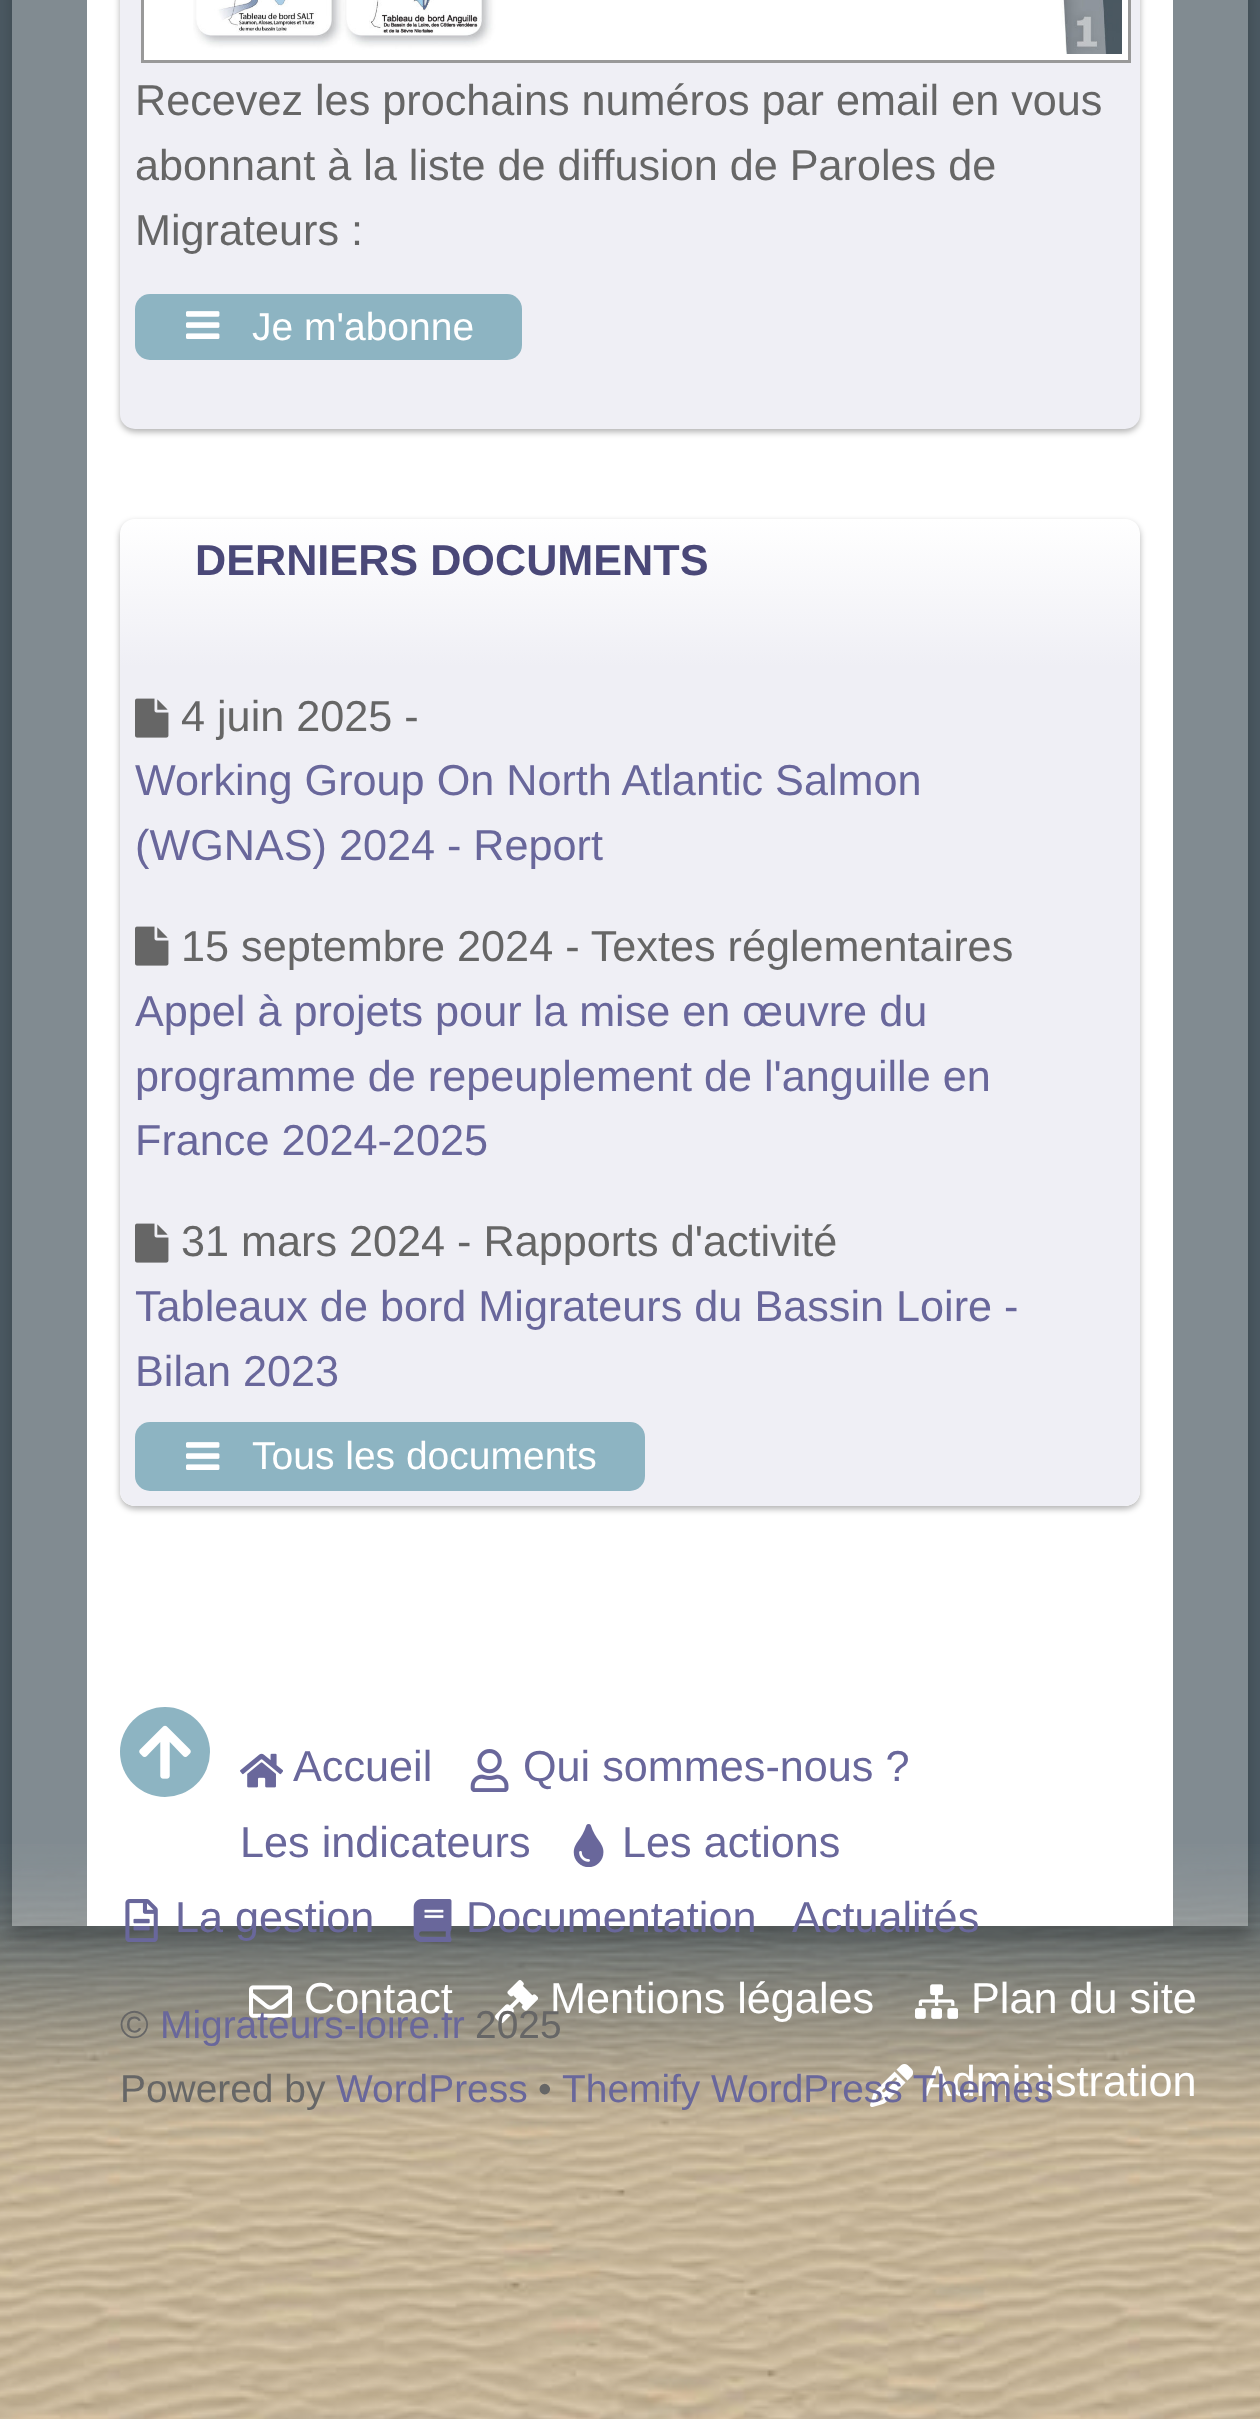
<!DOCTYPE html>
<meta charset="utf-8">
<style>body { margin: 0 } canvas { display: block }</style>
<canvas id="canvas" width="1260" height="2419"></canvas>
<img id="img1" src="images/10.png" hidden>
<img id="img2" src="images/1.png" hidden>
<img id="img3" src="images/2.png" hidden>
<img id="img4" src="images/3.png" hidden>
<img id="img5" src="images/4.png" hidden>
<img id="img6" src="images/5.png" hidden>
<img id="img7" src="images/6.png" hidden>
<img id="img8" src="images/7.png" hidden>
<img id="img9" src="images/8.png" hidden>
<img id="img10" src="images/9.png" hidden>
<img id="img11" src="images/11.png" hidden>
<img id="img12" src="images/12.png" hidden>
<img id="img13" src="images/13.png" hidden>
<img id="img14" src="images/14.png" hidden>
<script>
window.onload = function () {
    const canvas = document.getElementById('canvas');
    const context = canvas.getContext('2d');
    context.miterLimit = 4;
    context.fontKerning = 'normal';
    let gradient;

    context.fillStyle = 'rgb(75, 89, 98)';
    context.fillRect(0, 0, 1260, 2419);
    context.drawImage(document.getElementById('img1'), 0, 1844, 1260, 575);
    context.save();
    context.beginPath();
    context.moveTo(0, 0);
    context.lineTo(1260, 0);
    context.lineTo(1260, 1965);
    context.lineTo(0, 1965);
    context.closePath();
    context.moveTo(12, -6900);
    context.lineTo(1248, -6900);
    context.lineTo(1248, 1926);
    context.lineTo(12, 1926);
    context.closePath();
    context.clip('evenodd');
    context.fillStyle = 'rgba(0, 0, 0, 0.2)';
    context.filter = 'blur(7.5px)';
    context.beginPath();
    context.rect(12, -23, 1236, 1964);
    context.fill();
    context.filter = 'none';
    context.restore();
    context.fillStyle = 'rgba(255, 255, 255, 0.3)';
    context.fillRect(1173, 0, 75, 1926);
    context.fillRect(12, 0, 75, 1926);
    context.fillStyle = 'rgb(255, 255, 255)';
    context.fillRect(87, 0, 1086, 1926);
    context.fillStyle = 'rgba(0, 0, 0, 0.3)';
    context.filter = 'blur(3px)';
    context.beginPath();
    context.roundRect(120, -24, 1020, 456, 15);
    context.fill();
    context.filter = 'none';
    gradient = context.createLinearGradient(630, -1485, 630, 429);
    gradient.addColorStop(0, 'rgba(239, 239, 245, 0)');
    gradient.addColorStop(0.15, 'rgb(239, 239, 245)');
    gradient.addColorStop(0.99, 'rgb(239, 239, 245)');
    context.fillStyle = gradient;
    context.beginPath();
    context.roundRect(120, -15, 1020, 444, 15);
    context.fill();
    context.fillStyle = 'rgb(255, 255, 255)';
    context.beginPath();
    context.rect(142.5, -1.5, 987, 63);
    context.fill();
    context.strokeStyle = 'rgb(153, 153, 153)';
    context.lineWidth = 3;
    context.stroke();
    context.drawImage(document.getElementById('img2'), 193, 0, 929, 54);
    context.fillStyle = 'rgb(141, 180, 194)';
    context.beginPath();
    context.roundRect(135, 294, 387, 66, 15);
    context.fill();
    context.drawImage(document.getElementById('img3'), 186, 311, 34, 28);
    context.save();
    context.beginPath();
    context.moveTo(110, 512);
    context.lineTo(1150, 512);
    context.lineTo(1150, 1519);
    context.lineTo(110, 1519);
    context.closePath();
    context.moveTo(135, 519);
    context.lineTo(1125, 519);
    context.bezierCurveTo(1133.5, 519, 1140, 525.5, 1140, 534);
    context.lineTo(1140, 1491);
    context.bezierCurveTo(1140, 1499.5, 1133.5, 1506, 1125, 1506);
    context.lineTo(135, 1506);
    context.bezierCurveTo(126.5, 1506, 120, 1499.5, 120, 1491);
    context.lineTo(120, 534);
    context.bezierCurveTo(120, 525.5, 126.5, 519, 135, 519);
    context.closePath();
    context.clip('evenodd');
    context.fillStyle = 'rgba(0, 0, 0, 0.3)';
    context.filter = 'blur(3px)';
    context.beginPath();
    context.roundRect(120, 522, 1020, 987, 15);
    context.fill();
    context.filter = 'none';
    context.restore();
    gradient = context.createLinearGradient(630, 519, 630, 1506);
    gradient.addColorStop(0, 'rgba(239, 239, 245, 0)');
    gradient.addColorStop(0.15, 'rgb(239, 239, 245)');
    gradient.addColorStop(0.99, 'rgb(239, 239, 245)');
    context.fillStyle = gradient;
    context.beginPath();
    context.roundRect(120, 519, 1020, 987, 15);
    context.fill();
    context.drawImage(document.getElementById('img4'), 135, 698, 34, 40);
    context.drawImage(document.getElementById('img4'), 135, 926, 34, 40);
    context.drawImage(document.getElementById('img4'), 135, 1223, 34, 40);
    context.fillStyle = 'rgb(141, 180, 194)';
    context.beginPath();
    context.roundRect(135, 1422, 510, 69, 15);
    context.fill();
    context.drawImage(document.getElementById('img3'), 186, 1442, 34, 28);
    context.beginPath();
    context.arc(165, 1752, 45, 0, 2 * Math.PI);
    context.fill();
    context.drawImage(document.getElementById('img5'), 139, 1725, 52, 54);
    context.drawImage(document.getElementById('img6'), 240, 1753, 43, 35);
    context.drawImage(document.getElementById('img7'), 470, 1749, 39, 43);
    context.drawImage(document.getElementById('img8'), 573, 1824, 31, 43);
    context.drawImage(document.getElementById('img9'), 125, 1899, 33, 43);
    context.drawImage(document.getElementById('img10'), 413, 1899, 39, 43);
    context.drawImage(document.getElementById('img11'), 249, 1985, 43, 33);
    context.drawImage(document.getElementById('img12'), 495, 1980, 43, 43);
    context.drawImage(document.getElementById('img13'), 915, 1984, 43, 35);
    context.drawImage(document.getElementById('img14'), 870, 2064, 43, 43);
    context.font = '43.2px Liberation Sans';
    context.fillStyle = 'rgb(102, 102, 102)';
    context.fillText('Recevez les prochains numéros par email en vous', 135, 115);
    context.fillText('abonnant à la liste de diffusion de Paroles de', 135, 180);
    context.fillText('Migrateurs :', 135, 245);
    context.font = '39px Liberation Sans';
    context.fillStyle = 'rgb(255, 255, 255)';
    context.fillText('Je m\'abonne', 252, 340);
    context.font = 'bold 43.2px Liberation Sans';
    context.fillStyle = 'rgb(74, 72, 120)';
    context.fillText('DERNIERS DOCUMENTS', 195, 575);
    context.font = '43.2px Liberation Sans';
    context.fillStyle = 'rgb(102, 102, 102)';
    context.fillText('4 juin 2025 -', 181, 731);
    context.fillStyle = 'rgb(105, 103, 155)';
    context.fillText('Working Group On North Atlantic Salmon', 135, 795);
    context.fillText('(WGNAS) 2024 - Report', 135, 860);
    context.fillStyle = 'rgb(102, 102, 102)';
    context.fillText('15 septembre 2024 - Textes réglementaires', 181, 961);
    context.fillStyle = 'rgb(105, 103, 155)';
    context.fillText('Appel à projets pour la mise en œuvre du', 135, 1026);
    context.fillText('programme de repeuplement de l\'anguille en', 135, 1091);
    context.fillText('France 2024-2025', 135, 1155);
    context.fillStyle = 'rgb(102, 102, 102)';
    context.fillText('31 mars 2024 - Rapports d\'activité', 181, 1256);
    context.fillStyle = 'rgb(105, 103, 155)';
    context.fillText('Tableaux de bord Migrateurs du Bassin Loire -', 135, 1321);
    context.fillText('Bilan 2023', 135, 1386);
    context.font = '39px Liberation Sans';
    context.fillStyle = 'rgb(255, 255, 255)';
    context.fillText('Tous les documents', 252, 1469);
    context.font = '43.2px Liberation Sans';
    context.fillStyle = 'rgb(105, 103, 155)';
    context.fillText('Accueil', 293, 1781);
    context.fillText('Qui sommes-nous ?', 523, 1781);
    context.fillText('Les indicateurs', 240, 1857);
    context.fillText('Les actions', 622, 1857);
    context.fillText('La gestion', 175, 1932);
    context.fillText('Documentation', 466, 1932);
    context.fillText('Actualités', 792, 1932);
    context.font = '38.9px Liberation Sans';
    context.fillStyle = 'rgb(102, 102, 102)';
    context.fillText('©', 120, 2038);
    context.fillStyle = 'rgb(105, 103, 155)';
    context.fillText('Migrateurs-loire.fr', 160, 2038);
    context.fillStyle = 'rgb(102, 102, 102)';
    context.fillText('Powered by', 120, 2102);
    context.fillStyle = 'rgb(105, 103, 155)';
    context.fillText('WordPress', 336, 2102);
    context.fillStyle = 'rgb(102, 102, 102)';
    context.fillText('•', 538, 2102);
    context.font = '43.2px Liberation Sans';
    context.fillStyle = 'rgb(255, 255, 255)';
    context.fillText('Contact', 304, 2013);
    context.fillText('Mentions légales', 550, 2013);
    context.font = '38.9px Liberation Sans';
    context.fillStyle = 'rgb(102, 102, 102)';
    context.fillText('2025', 475, 2038);
    context.font = '43.2px Liberation Sans';
    context.fillStyle = 'rgb(255, 255, 255)';
    context.fillText('Plan du site', 971, 2013);
    context.fillText('Administration', 923, 2096);
    context.font = '38.9px Liberation Sans';
    context.fillStyle = 'rgb(105, 103, 155)';
    context.fillText('Themify WordPress Themes', 562, 2102);
};
</script>
